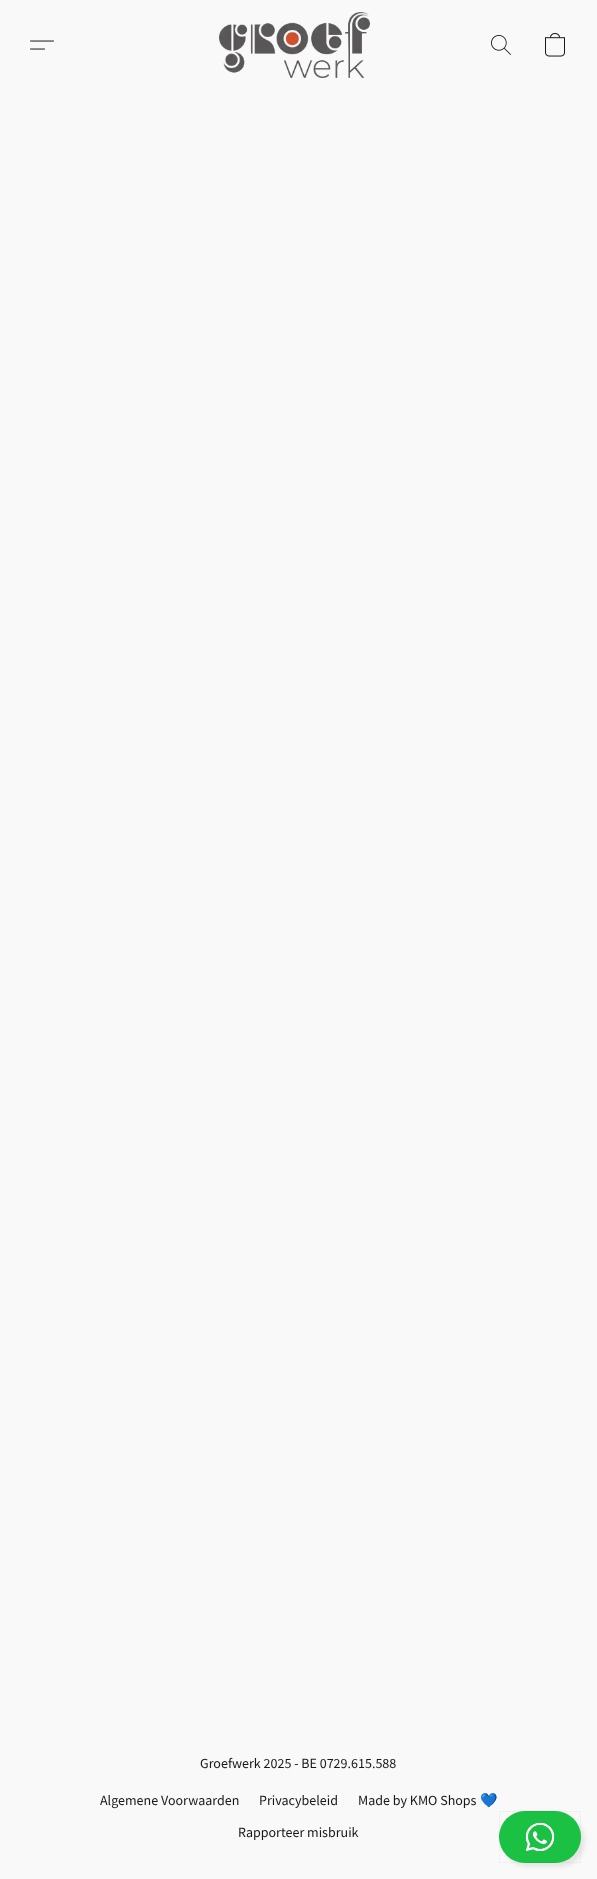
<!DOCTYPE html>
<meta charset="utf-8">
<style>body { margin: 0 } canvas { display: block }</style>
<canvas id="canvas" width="597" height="1879"></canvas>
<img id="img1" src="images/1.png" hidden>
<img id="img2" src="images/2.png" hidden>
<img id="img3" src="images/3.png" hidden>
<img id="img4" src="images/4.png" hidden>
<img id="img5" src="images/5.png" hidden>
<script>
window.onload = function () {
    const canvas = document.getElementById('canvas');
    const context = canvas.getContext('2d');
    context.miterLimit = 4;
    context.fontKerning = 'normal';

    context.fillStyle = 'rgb(249, 249, 249)';
    context.fillRect(0, 0, 597, 1879);
    context.drawImage(document.getElementById('img1'), 30, 40, 24, 10);
    context.drawImage(document.getElementById('img2'), 219, 12, 151, 66);
    context.drawImage(document.getElementById('img3'), 491, 35, 20, 20);
    context.drawImage(document.getElementById('img4'), 545, 33, 20, 24);
    context.fillStyle = 'rgba(0, 0, 0, 0.08)';
    context.filter = 'blur(2px)';
    context.beginPath();
    context.roundRect(503, 1815, 82, 52, 26);
    context.fill();
    context.filter = 'none';
    context.fillStyle = 'rgb(26, 193, 67)';
    context.beginPath();
    context.roundRect(499, 1811, 82, 52, 26);
    context.fill();
    context.strokeStyle = 'rgba(22, 22, 22, 0.04)';
    context.strokeRect(499.5, 1811.5, 81, 51);
    context.drawImage(document.getElementById('img5'), 525, 1822, 30, 29);
    context.font = '14px Source Sans Pro';
    context.fillStyle = 'rgb(25, 25, 25)';
    context.fillText('Groefwerk 2025 - BE 0729.615.588', 200, 1768);
    context.fillText('Algemene Voorwaarden', 100, 1805);
    context.fillText('Privacybeleid', 259, 1805);
    context.fillText('Made by KMO Shops', 358, 1805);
    context.font = '14px Noto Color Emoji';
    context.fillText('💙', 480, 1805);
    context.font = '14px Source Sans Pro';
    context.fillText('Rapporteer misbruik', 238, 1837);
};
</script>
